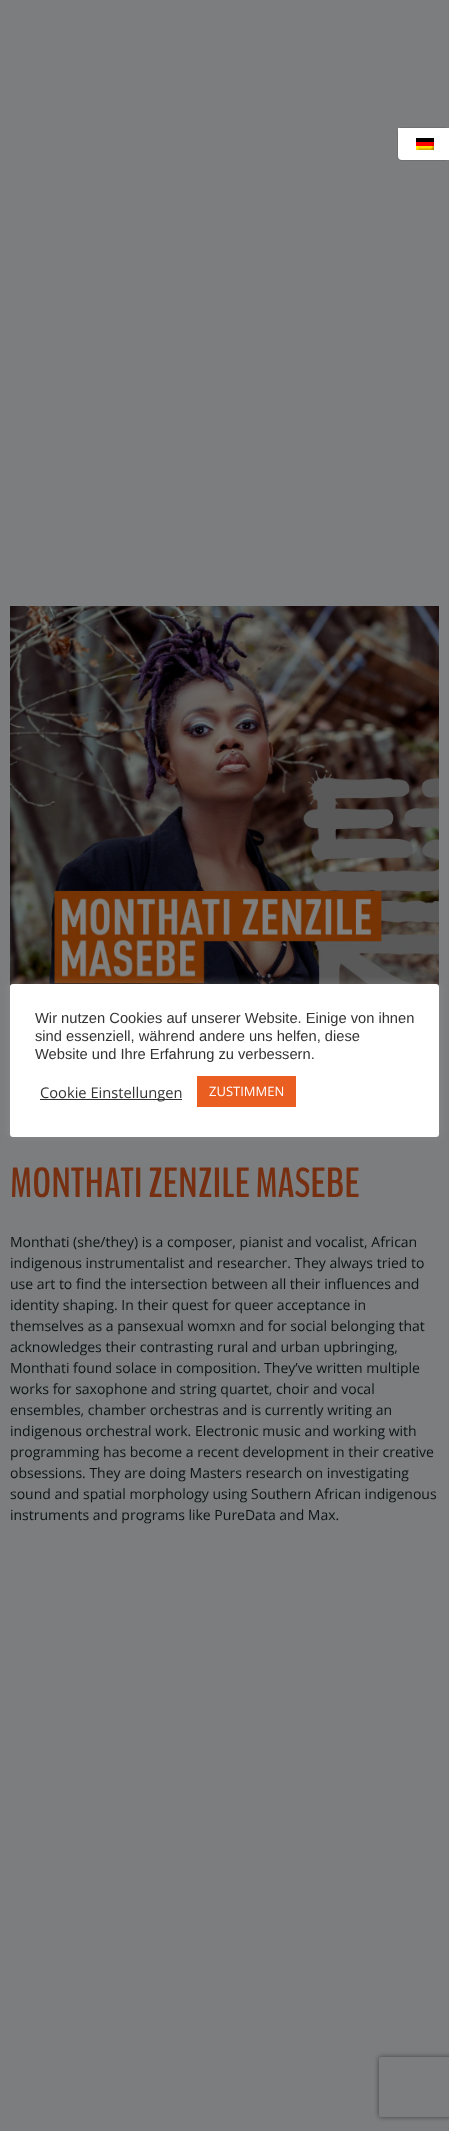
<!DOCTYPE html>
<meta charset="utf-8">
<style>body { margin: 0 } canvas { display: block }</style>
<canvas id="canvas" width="449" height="2131"></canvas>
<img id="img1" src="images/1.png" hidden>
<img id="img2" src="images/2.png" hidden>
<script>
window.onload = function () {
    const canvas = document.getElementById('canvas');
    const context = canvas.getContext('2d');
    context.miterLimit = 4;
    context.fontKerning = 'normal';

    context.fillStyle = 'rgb(123, 125, 127)';
    context.fillRect(0, 0, 449, 2131);
    context.fillStyle = 'rgba(0, 0, 0, 0.1)';
    context.filter = 'blur(0.5px)';
    context.beginPath();
    context.roundRect(397, 127, 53, 34, 5);
    context.fill();
    context.filter = 'none';
    context.fillStyle = 'rgb(255, 255, 255)';
    context.beginPath();
    context.roundRect(398, 128, 51, 32, [0, 0, 0, 4]);
    context.fill();
    context.drawImage(document.getElementById('img1'), 416, 138, 18, 12);
    context.drawImage(document.getElementById('img2'), 10, 606, 429, 381);
    context.fillStyle = 'rgba(172, 171, 171, 0.3)';
    context.filter = 'blur(5px)';
    context.beginPath();
    context.roundRect(10, 983, 429, 153, 3);
    context.fill();
    context.filter = 'none';
    context.fillStyle = 'rgb(255, 255, 255)';
    context.beginPath();
    context.roundRect(10, 984, 429, 153, 3);
    context.fill();
    context.fillStyle = 'rgb(51, 51, 51)';
    context.fillRect(40, 1099, 142, 1);
    context.fillStyle = 'rgb(235, 94, 33)';
    context.fillRect(197, 1076, 99, 31);
    context.save();
    context.beginPath();
    context.moveTo(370, 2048);
    context.lineTo(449, 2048);
    context.lineTo(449, 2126);
    context.lineTo(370, 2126);
    context.closePath();
    context.moveTo(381, 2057);
    context.lineTo(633, 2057);
    context.bezierCurveTo(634, 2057, 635, 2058, 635, 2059);
    context.lineTo(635, 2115);
    context.bezierCurveTo(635, 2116, 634, 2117, 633, 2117);
    context.lineTo(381, 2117);
    context.bezierCurveTo(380, 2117, 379, 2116, 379, 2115);
    context.lineTo(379, 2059);
    context.bezierCurveTo(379, 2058, 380, 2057, 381, 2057);
    context.closePath();
    context.clip('evenodd');
    context.fillStyle = 'rgb(64, 64, 64)';
    context.filter = 'blur(2.5px)';
    context.beginPath();
    context.roundRect(379, 2057, 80, 60, 2);
    context.fill();
    context.filter = 'none';
    context.restore();
    context.font = '14.7px Liberation Sans';
    context.fillStyle = 'rgb(51, 51, 51)';
    context.fillText('Wir nutzen Cookies auf unserer Website. Einige von ihnen', 35, 1023);
    context.fillText('sind essenziell, während andere uns helfen, diese', 35, 1041);
    context.fillText('Website und Ihre Erfahrung zu verbessern.', 35, 1059);
    context.font = '14.7px Open Sans';
    context.fillText('Cookie Einstellungen', 40, 1098);
    context.font = '13px Open Sans';
    context.fillStyle = 'rgb(255, 255, 255)';
    context.fillText('ZUSTIMMEN', 209, 1096);
    context.font = 'bold 42px BenchNine';
    context.fillStyle = 'rgb(118, 47, 17)';
    context.fillText('MONTHATI ZENZILE MASEBE', 10, 1197);
    context.font = '14px Open Sans';
    context.fillStyle = 'rgb(12, 19, 21)';
    context.fillText('Monthati (she/they) is a composer, pianist and vocalist, African', 10, 1247);
    context.fillText('indigenous instrumentalist and researcher. They always tried to', 10, 1268);
    context.fillText('use art to find the intersection between all their influences and', 10, 1289);
    context.fillText('identity shaping. In their quest for queer acceptance in', 10, 1310);
    context.fillText('themselves as a pansexual womxn and for social belonging that', 10, 1331);
    context.fillText('acknowledges their contrasting rural and urban upbringing,', 10, 1352);
    context.fillText('Monthati found solace in composition. They’ve written multiple', 10, 1373);
    context.fillText('works for saxophone and string quartet, choir and vocal', 10, 1394);
    context.fillText('ensembles, chamber orchestras and is currently writing an', 10, 1415);
    context.fillText('indigenous orchestral work. Electronic music and working with', 10, 1436);
    context.fillText('programming has become a recent development in their creative', 10, 1457);
    context.fillText('obsessions. They are doing Masters research on investigating', 10, 1478);
    context.fillText('sound and spatial morphology using Southern African indigenous', 10, 1499);
    context.fillText('instruments and programs like PureData and Max.', 10, 1520);
};
</script>
